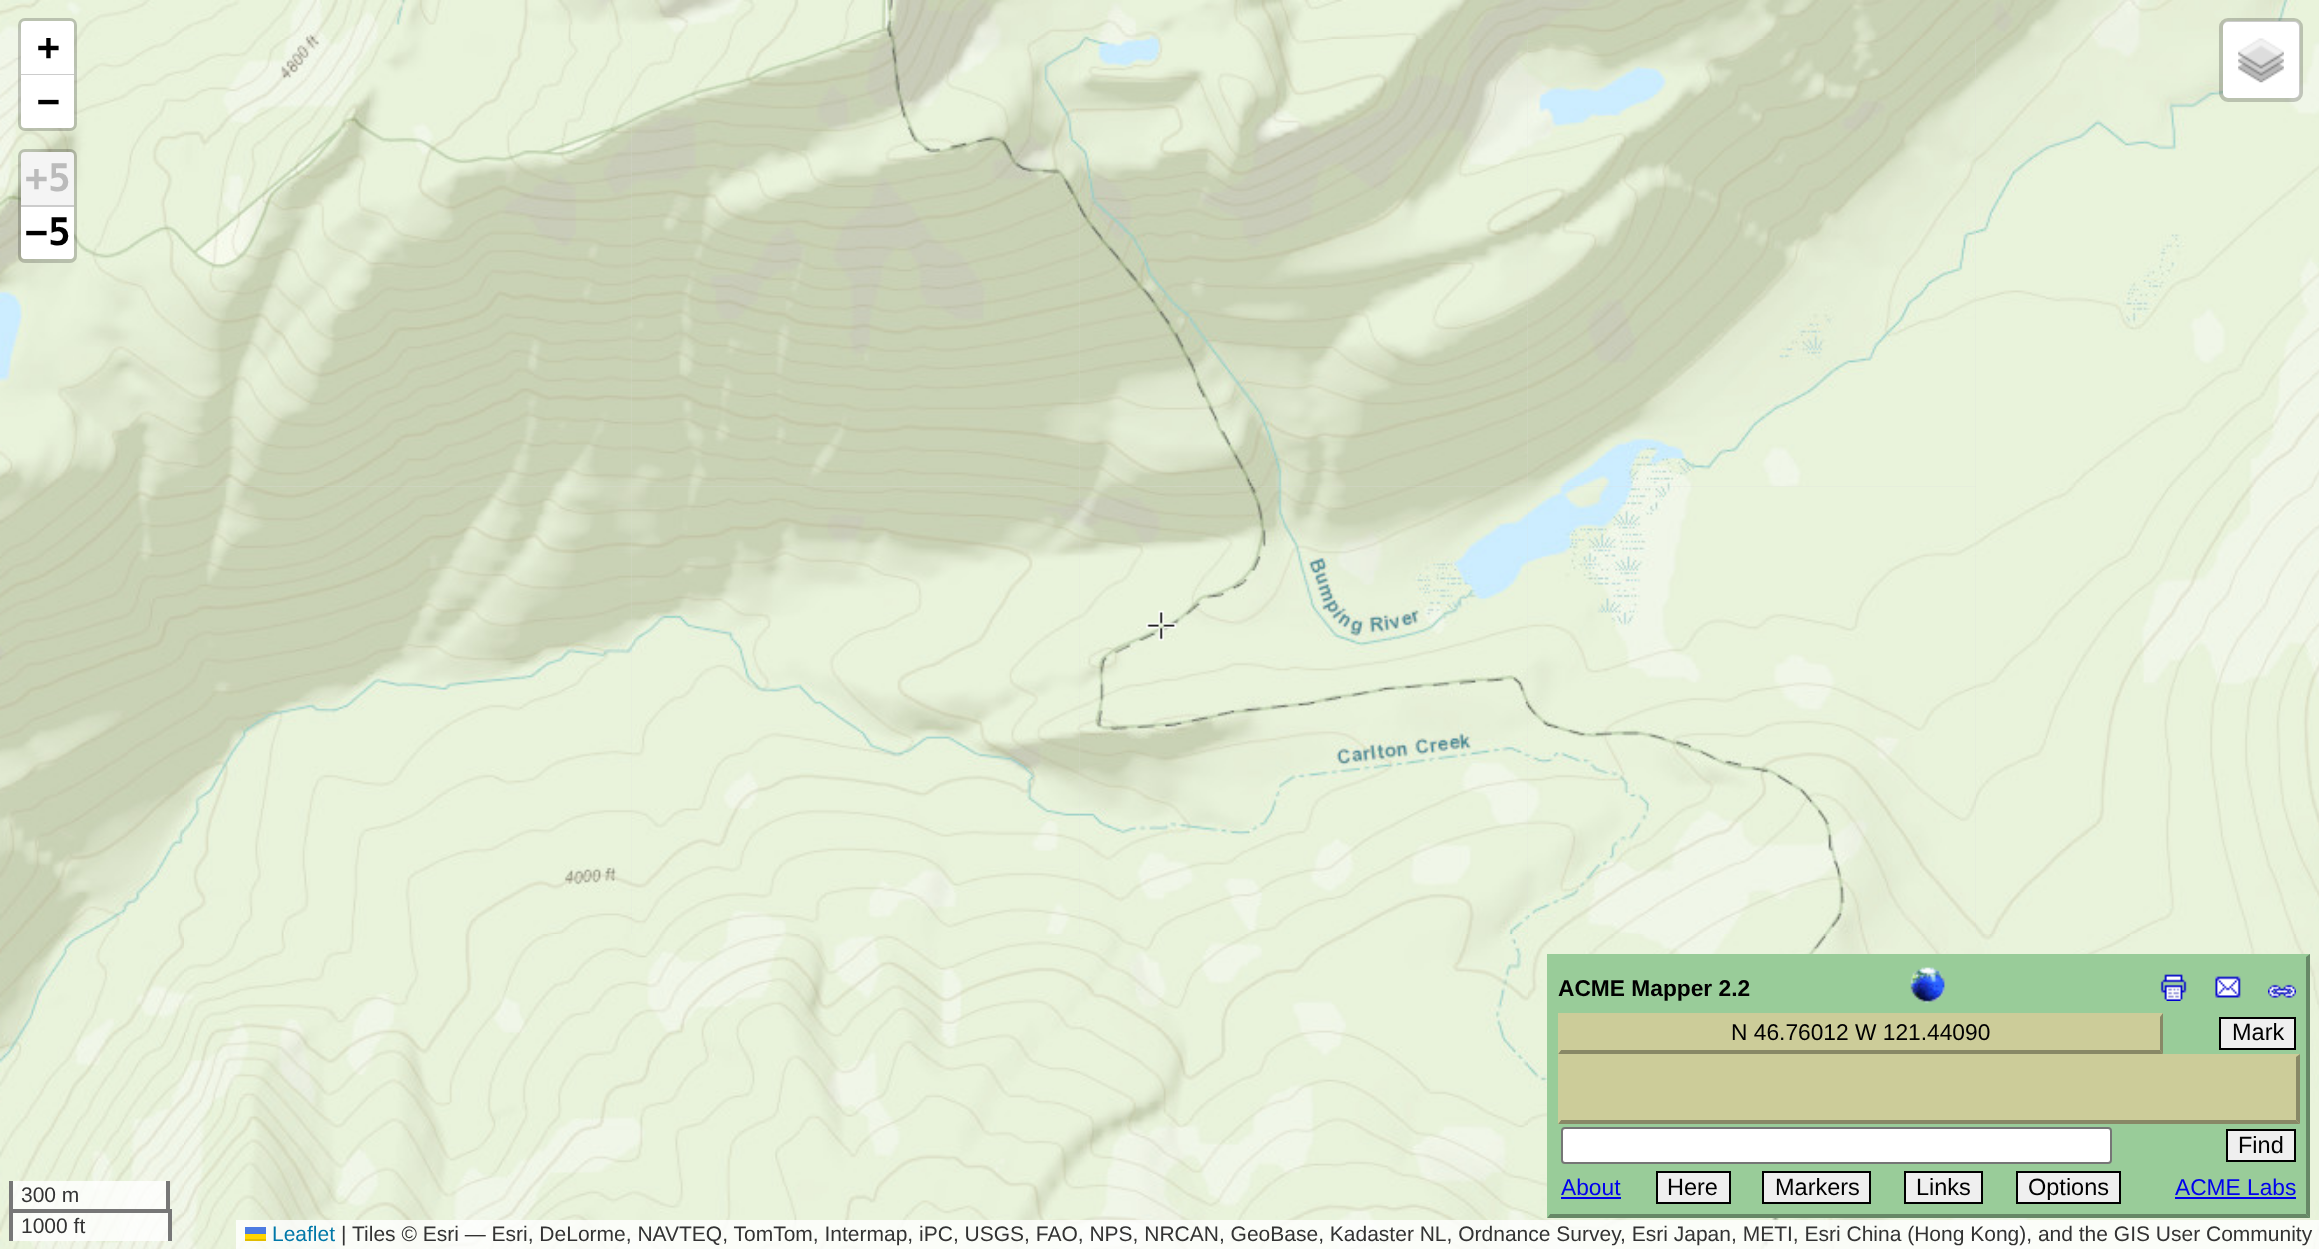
<!DOCTYPE html>
<meta charset="utf-8">
<style>body { margin: 0 } canvas { display: block }</style>
<canvas id="canvas" width="2319" height="1249"></canvas>
<img id="img1" src="images/1.png" hidden>
<img id="img2" src="images/2.png" hidden>
<img id="img3" src="images/3.png" hidden>
<img id="img4" src="images/4.png" hidden>
<img id="img5" src="images/5.png" hidden>
<img id="img6" src="images/6.png" hidden>
<img id="img7" src="images/7.png" hidden>
<img id="img8" src="images/9.png" hidden>
<img id="img9" src="images/10.png" hidden>
<img id="img10" src="images/15.png" hidden>
<img id="img11" src="images/8.png" hidden>
<img id="img12" src="images/16.png" hidden>
<img id="img13" src="images/11.png" hidden>
<img id="img14" src="images/12.png" hidden>
<img id="img15" src="images/13.png" hidden>
<img id="img16" src="images/14.png" hidden>
<img id="img17" src="images/17.png" hidden>
<img id="img18" src="images/18.png" hidden>
<img id="img19" src="images/19.png" hidden>
<img id="img20" src="images/20.png" hidden>
<img id="img21" src="images/21.png" hidden>
<img id="img22" src="images/22.png" hidden>
<img id="img23" src="images/23.png" hidden>
<img id="img24" src="images/24.png" hidden>
<img id="img25" src="images/25.png" hidden>
<img id="img26" src="images/26.png" hidden>
<img id="img27" src="images/27.png" hidden>
<img id="img28" src="images/28.png" hidden>
<img id="img29" src="images/29.png" hidden>
<img id="img30" src="images/30.png" hidden>
<script>
window.onload = function () {
    const canvas = document.getElementById('canvas');
    const context = canvas.getContext('2d');
    context.miterLimit = 4;
    context.fontKerning = 'normal';

    context.fillStyle = 'rgb(221, 221, 221)';
    context.fillRect(0, 0, 2319, 1249);
    context.drawImage(document.getElementById('img1'), 0, 0, 184, 39);
    context.drawImage(document.getElementById('img2'), 184, 0, 448, 39);
    context.drawImage(document.getElementById('img3'), 632, 0, 448, 39);
    context.drawImage(document.getElementById('img4'), 1080, 0, 448, 39);
    context.drawImage(document.getElementById('img5'), 1528, 0, 448, 39);
    context.drawImage(document.getElementById('img6'), 1976, 0, 343, 39);
    context.drawImage(document.getElementById('img7'), 0, 39, 184, 448);
    context.drawImage(document.getElementById('img8'), 631, 39, 449, 448);
    context.drawImage(document.getElementById('img9'), 1079, 39, 449, 448);
    context.drawImage(document.getElementById('img10'), 631, 486, 449, 448);
    context.drawImage(document.getElementById('img11'), 184, 39, 448, 448);
    context.drawImage(document.getElementById('img12'), 1079, 486, 449, 448);
    context.drawImage(document.getElementById('img13'), 1527, 39, 449, 448);
    context.drawImage(document.getElementById('img14'), 1976, 39, 343, 448);
    context.drawImage(document.getElementById('img15'), 0, 487, 184, 447);
    context.drawImage(document.getElementById('img16'), 184, 486, 448, 448);
    context.drawImage(document.getElementById('img17'), 1527, 486, 449, 448);
    context.drawImage(document.getElementById('img18'), 1976, 487, 343, 447);
    context.drawImage(document.getElementById('img19'), 0, 934, 184, 315);
    context.drawImage(document.getElementById('img20'), 184, 934, 448, 315);
    context.drawImage(document.getElementById('img21'), 632, 934, 448, 315);
    context.drawImage(document.getElementById('img22'), 1080, 934, 448, 315);
    context.drawImage(document.getElementById('img23'), 1528, 934, 448, 315);
    context.drawImage(document.getElementById('img24'), 1976, 934, 343, 315);
    context.beginPath();
    context.roundRect(20, 20, 55, 109, 5);
    context.strokeStyle = 'rgba(0, 0, 0, 0.2)';
    context.lineWidth = 4;
    context.stroke();
    context.fillStyle = 'rgb(255, 255, 255)';
    context.beginPath();
    context.roundRect(21, 21, 53, 54, [4, 4, 0, 0]);
    context.fill();
    context.fillStyle = 'rgb(204, 204, 204)';
    context.fillRect(21, 74, 53, 1);
    context.fillStyle = 'rgb(255, 255, 255)';
    context.beginPath();
    context.roundRect(21, 75, 53, 53, [0, 0, 4, 4]);
    context.fill();
    context.beginPath();
    context.roundRect(20, 151, 55, 110, 5);
    context.stroke();
    context.fillStyle = 'rgb(244, 244, 244)';
    context.beginPath();
    context.roundRect(21, 152, 53, 55, [4, 4, 0, 0]);
    context.fill();
    context.fillStyle = 'rgb(204, 204, 204)';
    context.fillRect(21, 205, 53, 2);
    context.fillStyle = 'rgb(255, 255, 255)';
    context.beginPath();
    context.roundRect(21, 207, 53, 52, [0, 0, 4, 4]);
    context.fill();
    context.beginPath();
    context.roundRect(2223, 21, 77, 77, 5);
    context.fill();
    context.beginPath();
    context.roundRect(2221, 20, 80, 80, 7);
    context.stroke();
    context.drawImage(document.getElementById('img25'), 2238, 38, 46, 45);
    context.fillStyle = 'rgba(255, 255, 255, 0.8)';
    context.fillRect(13, 1181, 153, 28);
    context.fillStyle = 'rgb(119, 119, 119)';
    context.fillRect(166, 1181, 4, 32);
    context.fillRect(9, 1181, 4, 32);
    context.fillStyle = 'rgba(255, 255, 255, 0.8)';
    context.fillRect(13, 1213, 155, 28);
    context.fillStyle = 'rgb(119, 119, 119)';
    context.fillRect(9, 1209, 163, 4);
    context.fillRect(168, 1209, 4, 32);
    context.fillRect(9, 1209, 4, 32);
    context.fillStyle = 'rgba(255, 255, 255, 0.8)';
    context.fillRect(236, 1220, 2083, 29);
    context.fillStyle = 'rgb(76, 123, 225)';
    context.fillRect(245, 1227, 21, 7);
    context.fillStyle = 'rgb(255, 213, 0)';
    context.fillRect(245, 1234, 21, 5);
    context.fillStyle = 'rgb(224, 188, 0)';
    context.fillRect(245, 1239, 21, 2);
    context.drawImage(document.getElementById('img26'), 1146, 610, 31, 31);
    context.fillStyle = 'rgb(153, 204, 153)';
    context.fillRect(1547, 954, 763, 264);
    context.fillStyle = 'rgb(102, 136, 102)';
    context.beginPath();
    context.moveTo(2310, 954);
    context.lineTo(2310, 1218);
    context.lineTo(2306, 1214);
    context.lineTo(2306, 957);
    context.closePath();
    context.fill();
    context.beginPath();
    context.moveTo(2310, 1218);
    context.lineTo(1547, 1218);
    context.lineTo(1550, 1214);
    context.lineTo(2306, 1214);
    context.closePath();
    context.fill();
    context.fillStyle = 'rgb(153, 204, 153)';
    context.beginPath();
    context.moveTo(1547, 1218);
    context.lineTo(1547, 954);
    context.lineTo(1550, 957);
    context.lineTo(1550, 1214);
    context.closePath();
    context.fill();
    context.drawImage(document.getElementById('img27'), 1910, 967, 35, 37);
    context.drawImage(document.getElementById('img28'), 2160, 974, 27, 27);
    context.drawImage(document.getElementById('img29'), 2215, 976, 26, 22);
    context.drawImage(document.getElementById('img30'), 2268, 984, 28, 14);
    context.fillStyle = 'rgb(204, 204, 153)';
    context.fillRect(1558, 1013, 605, 41);
    context.fillStyle = 'rgb(136, 136, 102)';
    context.beginPath();
    context.moveTo(2163, 1013);
    context.lineTo(2163, 1054);
    context.lineTo(2160, 1050);
    context.lineTo(2160, 1017);
    context.closePath();
    context.fill();
    context.beginPath();
    context.moveTo(2163, 1054);
    context.lineTo(1558, 1054);
    context.lineTo(1561, 1050);
    context.lineTo(2160, 1050);
    context.closePath();
    context.fill();
    context.fillStyle = 'rgb(204, 204, 153)';
    context.beginPath();
    context.moveTo(1558, 1054);
    context.lineTo(1558, 1013);
    context.lineTo(1561, 1017);
    context.lineTo(1561, 1050);
    context.closePath();
    context.fill();
    context.fillStyle = 'rgb(239, 239, 239)';
    context.beginPath();
    context.rect(2220, 1018, 75, 31);
    context.fill();
    context.strokeStyle = 'rgb(0, 0, 0)';
    context.lineWidth = 2;
    context.stroke();
    context.fillStyle = 'rgb(204, 204, 153)';
    context.fillRect(1558, 1054, 742, 70);
    context.fillStyle = 'rgb(136, 136, 102)';
    context.beginPath();
    context.moveTo(2300, 1054);
    context.lineTo(2300, 1124);
    context.lineTo(2296, 1120);
    context.lineTo(2296, 1057);
    context.closePath();
    context.fill();
    context.beginPath();
    context.moveTo(2300, 1124);
    context.lineTo(1558, 1124);
    context.lineTo(1561, 1120);
    context.lineTo(2296, 1120);
    context.closePath();
    context.fill();
    context.fillStyle = 'rgb(204, 204, 153)';
    context.beginPath();
    context.moveTo(1558, 1124);
    context.lineTo(1558, 1054);
    context.lineTo(1561, 1057);
    context.lineTo(1561, 1120);
    context.closePath();
    context.fill();
    context.fillStyle = 'rgb(255, 255, 255)';
    context.beginPath();
    context.roundRect(1562, 1128, 549, 35, 3);
    context.fill();
    context.strokeStyle = 'rgb(118, 118, 118)';
    context.stroke();
    context.fillStyle = 'rgb(239, 239, 239)';
    context.beginPath();
    context.rect(2227, 1130, 68, 31);
    context.fill();
    context.strokeStyle = 'rgb(0, 0, 0)';
    context.stroke();
    context.fillStyle = 'rgb(0, 0, 238)';
    context.fillRect(1561, 1197, 60, 2);
    context.fillStyle = 'rgb(239, 239, 239)';
    context.beginPath();
    context.rect(1657, 1172, 73, 31);
    context.fill();
    context.stroke();
    context.beginPath();
    context.rect(1763, 1172, 107, 31);
    context.fill();
    context.stroke();
    context.beginPath();
    context.rect(1905, 1172, 77, 31);
    context.fill();
    context.stroke();
    context.beginPath();
    context.rect(2017, 1172, 103, 31);
    context.fill();
    context.stroke();
    context.fillStyle = 'rgb(0, 0, 238)';
    context.fillRect(2175, 1197, 121, 2);
    context.font = 'bold 38px DejaVu Sans Mono';
    context.fillStyle = 'rgb(0, 0, 0)';
    context.fillText('+', 37, 60);
    context.fillText('−', 37, 114);
    context.fillStyle = 'rgb(187, 187, 187)';
    context.fillText('+5', 25, 191);
    context.fillStyle = 'rgb(0, 0, 0)';
    context.fillText('−5', 25, 245);
    context.font = '21px Liberation Sans';
    context.fillStyle = 'rgb(51, 51, 51)';
    context.fillText('300 m', 21, 1202);
    context.fillText('1000 ft', 21, 1233);
    context.fillStyle = 'rgb(0, 120, 168)';
    context.fillText('Leaflet', 272, 1241);
    context.fillStyle = 'rgb(51, 51, 51)';
    context.fillText('|', 341, 1241);
    context.fillText('Tiles © Esri — Esri, DeLorme, NAVTEQ, TomTom, Intermap, iPC, USGS, FAO, NPS, NRCAN, GeoBase, Kadaster NL, Ordnance Survey, Esri Japan, METI, Esri China (Hong Kong), and the GIS User Community', 352, 1241);
    context.font = 'bold 22.75px Liberation Sans';
    context.fillStyle = 'rgb(0, 0, 0)';
    context.fillText('ACME Mapper 2.2', 1558, 996);
    context.font = '22.75px Liberation Sans';
    context.fillText('N 46.76012 W 121.44090', 1731, 1040);
    context.font = '23.5px Liberation Sans';
    context.fillText('Mark', 2232, 1040);
    context.fillText('Find', 2238, 1153);
    context.font = '22.75px Liberation Sans';
    context.fillStyle = 'rgb(0, 0, 238)';
    context.fillText('About', 1561, 1195);
    context.font = '23.5px Liberation Sans';
    context.fillStyle = 'rgb(0, 0, 0)';
    context.fillText('Here', 1667, 1195);
    context.fillText('Markers', 1775, 1195);
    context.fillText('Links', 1916, 1195);
    context.fillText('Options', 2028, 1195);
    context.font = '22.75px Liberation Sans';
    context.fillStyle = 'rgb(0, 0, 238)';
    context.fillText('ACME Labs', 2175, 1195);
};
</script>
